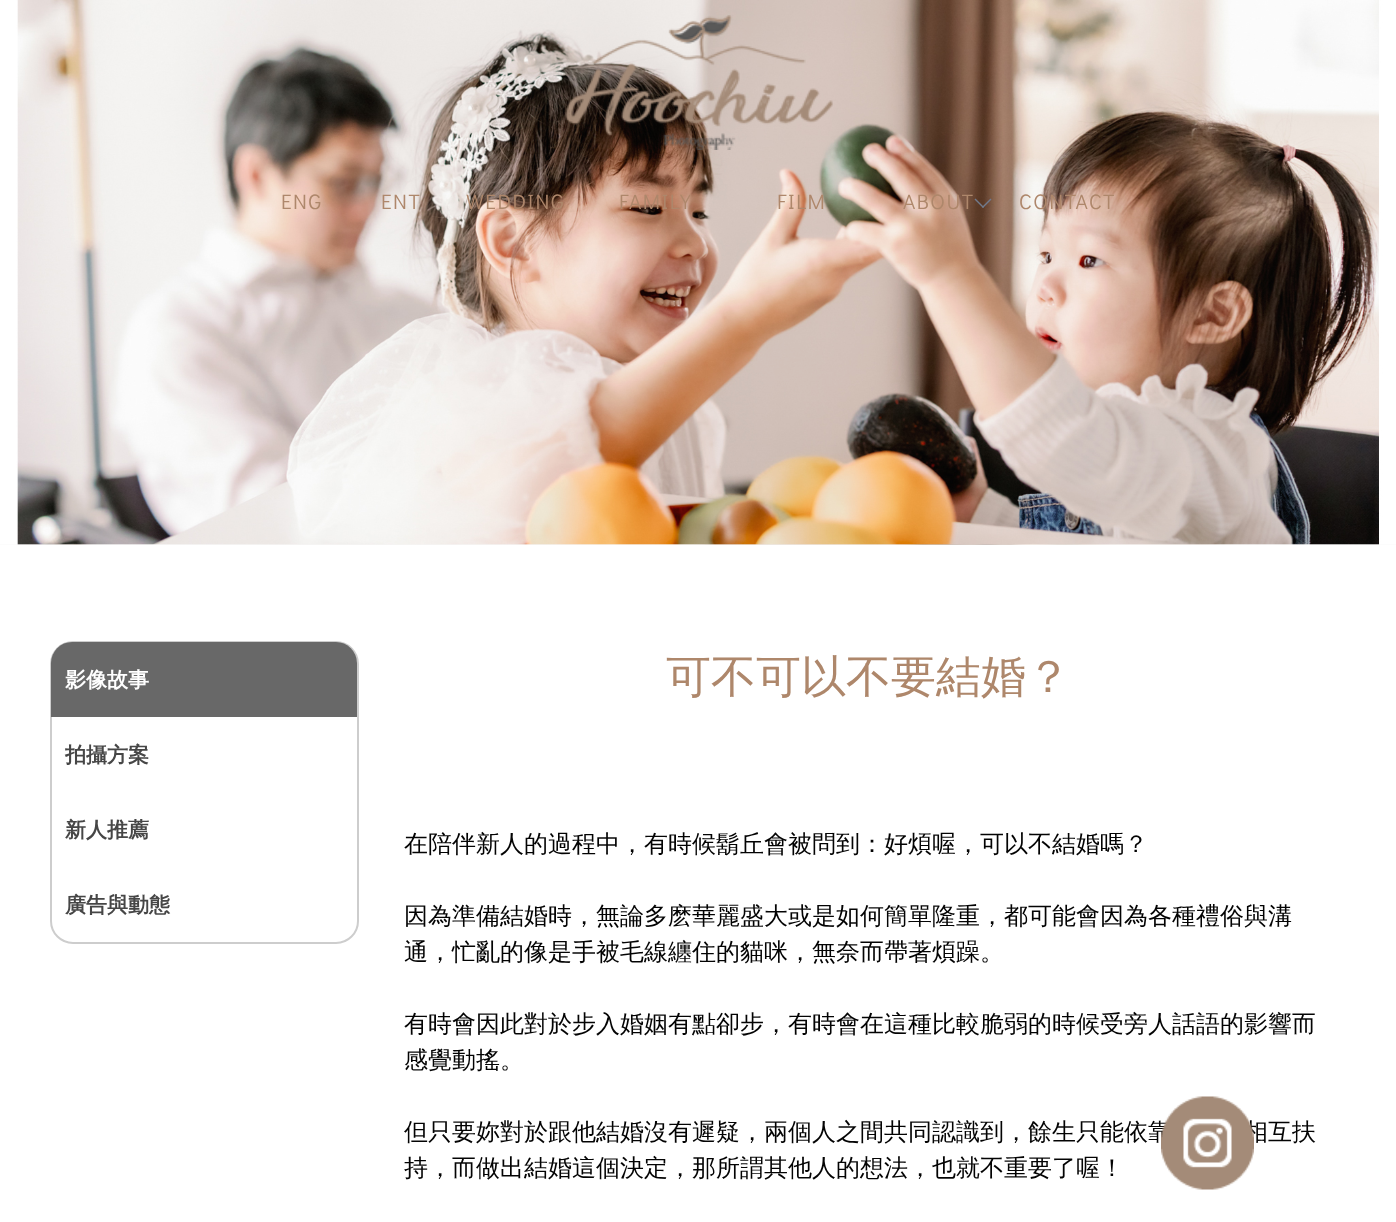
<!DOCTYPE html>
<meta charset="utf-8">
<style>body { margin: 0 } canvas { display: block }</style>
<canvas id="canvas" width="1396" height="1222"></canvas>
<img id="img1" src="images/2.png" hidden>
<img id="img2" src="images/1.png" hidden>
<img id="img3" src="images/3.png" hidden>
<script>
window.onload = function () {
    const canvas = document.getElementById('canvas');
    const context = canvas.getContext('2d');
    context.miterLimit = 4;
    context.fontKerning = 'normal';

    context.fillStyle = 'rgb(255, 255, 255)';
    context.fillRect(0, 0, 1396, 1222);
    context.fillStyle = 'rgb(249, 249, 249)';
    context.fillRect(0, 544, 1396, 1);
    context.drawImage(document.getElementById('img1'), 0, 0, 1396, 545);
    context.drawImage(document.getElementById('img2'), 565, 15, 268, 135);
    context.fillStyle = 'rgb(113, 122, 140)';
    context.beginPath();
    context.moveTo(990.5, 198.5);
    context.lineTo(991.5, 199.5);
    context.lineTo(983, 208);
    context.lineTo(982, 207);
    context.closePath();
    context.fill();
    context.beginPath();
    context.moveTo(975.5, 198.5);
    context.lineTo(984, 207);
    context.lineTo(983, 208);
    context.lineTo(974.5, 199.5);
    context.closePath();
    context.fill();
    context.beginPath();
    context.roundRect(51, 642, 307, 301, 22);
    context.strokeStyle = 'rgb(205, 205, 205)';
    context.lineWidth = 2;
    context.stroke();
    context.fillStyle = 'rgb(104, 104, 104)';
    context.beginPath();
    context.roundRect(51, 642, 306, 75, [21, 21, 0, 0]);
    context.fill();
    context.letterSpacing = '1.5px';
    context.font = '21px Didact Gothic';
    context.fillStyle = 'rgb(174, 135, 107)';
    context.fillText('ENG', 281, 209);
    context.fillText('ENT', 381, 209);
    context.fillText('WEDDING', 466, 209);
    context.fillText('FAMILY', 619, 209);
    context.fillText('FILM', 777, 209);
    context.fillText('ABOUT', 903, 209);
    context.fillText('CONTACT', 1019, 209);
    context.letterSpacing = '0px';
    context.font = 'bold 21px WenQuanYi Zen Hei';
    context.fillStyle = 'rgb(255, 255, 255)';
    context.fillText('影像故事', 65, 687);
    context.fillStyle = 'rgb(70, 70, 70)';
    context.fillText('拍攝方案', 65, 762);
    context.fillText('新人推薦', 65, 837);
    context.fillText('廣告與動態', 65, 912);
    context.font = '500 45px WenQuanYi Zen Hei';
    context.fillStyle = 'rgb(174, 135, 107)';
    context.fillText('可不可以不要結婚？', 666, 692);
    context.font = '500 24px WenQuanYi Zen Hei';
    context.fillStyle = 'rgb(3, 3, 3)';
    context.fillText('在陪伴新人的過程中，有時候鬍丘會被問到：好煩喔，可以不結婚嗎？', 404, 852);
    context.fillText('因為準備結婚時，無論多麽華麗盛大或是如何簡單隆重，都可能會因為各種禮俗與溝', 404, 924);
    context.fillText('通，忙亂的像是手被毛線纏住的貓咪，無奈而帶著煩躁。', 404, 960);
    context.fillText('有時會因此對於步入婚姻有點卻步，有時會在這種比較脆弱的時候受旁人話語的影響而', 404, 1032);
    context.fillText('感覺動搖。', 404, 1068);
    context.fillText('但只要妳對於跟他結婚沒有遲疑，兩個人之間共同認識到，餘生只能依靠', 404, 1140);
    context.fillText('相互扶', 1244, 1140);
    context.fillText('持，而做出結婚這個決定，那所謂其他人的想法，也就不重要了喔！', 404, 1176);
    context.drawImage(document.getElementById('img3'), 1161, 1096, 93, 94);
};
</script>
